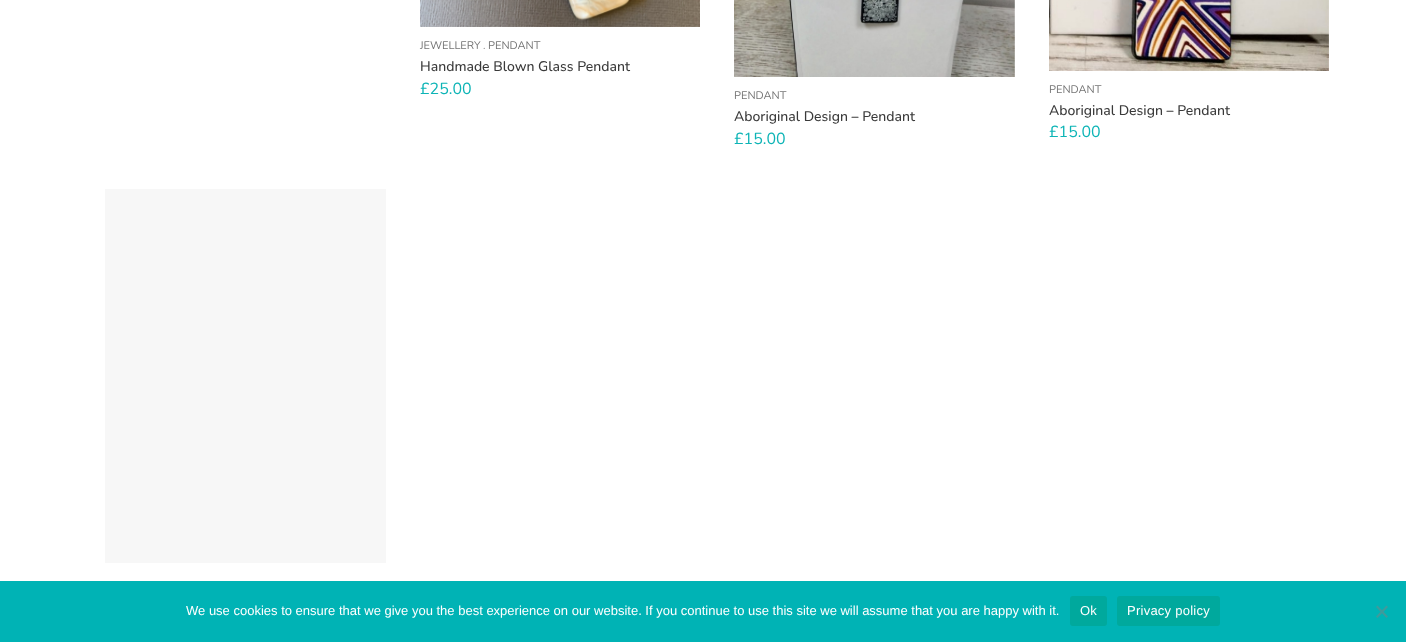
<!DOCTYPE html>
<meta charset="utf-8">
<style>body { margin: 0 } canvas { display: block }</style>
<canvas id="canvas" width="1406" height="642"></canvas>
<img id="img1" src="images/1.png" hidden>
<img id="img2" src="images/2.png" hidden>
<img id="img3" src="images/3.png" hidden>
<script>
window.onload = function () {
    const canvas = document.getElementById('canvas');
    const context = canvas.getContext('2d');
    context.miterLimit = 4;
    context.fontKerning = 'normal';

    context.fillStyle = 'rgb(255, 255, 255)';
    context.fillRect(0, 0, 1406, 642);
    context.drawImage(document.getElementById('img1'), 420, 0, 280, 27);
    context.drawImage(document.getElementById('img2'), 734, 0, 281, 77);
    context.drawImage(document.getElementById('img3'), 1049, 0, 280, 71);
    context.fillStyle = 'rgb(247, 247, 247)';
    context.fillRect(105, 189, 281, 374);
    context.fillStyle = 'rgb(0, 179, 181)';
    context.fillRect(0, 581, 1406, 61);
    context.fillStyle = 'rgb(0, 169, 157)';
    context.beginPath();
    context.roundRect(1070, 596, 37, 30, 3);
    context.fill();
    context.beginPath();
    context.roundRect(1117, 596, 103, 30, 3);
    context.fill();
    context.fillStyle = 'rgb(64, 154, 155)';
    context.beginPath();
    context.moveTo(1386.5, 605.5);
    context.lineTo(1388, 607);
    context.lineTo(1377.5, 618);
    context.lineTo(1376, 616.5);
    context.closePath();
    context.fill();
    context.beginPath();
    context.moveTo(1376, 607);
    context.lineTo(1377.5, 605.5);
    context.lineTo(1388, 616.5);
    context.lineTo(1386.5, 618);
    context.closePath();
    context.fill();
    context.font = '200 11px Nunito';
    context.fillStyle = 'rgb(117, 117, 117)';
    context.fillText('JEWELLERY', 420, 49);
    context.fillStyle = 'rgb(151, 151, 151)';
    context.fillText('.', 483, 49);
    context.fillStyle = 'rgb(117, 117, 117)';
    context.fillText('PENDANT', 488, 49);
    context.font = '500 14px Nunito';
    context.fillStyle = 'rgb(58, 58, 58)';
    context.fillText('Handmade Blown Glass Pendant', 420, 71);
    context.font = '200 16px Nunito';
    context.fillStyle = 'rgb(13, 180, 182)';
    context.fillText('£25.00', 420, 94);
    context.font = '200 11px Nunito';
    context.fillStyle = 'rgb(117, 117, 117)';
    context.fillText('PENDANT', 734, 99);
    context.font = '500 14px Nunito';
    context.fillStyle = 'rgb(58, 58, 58)';
    context.fillText('Aboriginal Design – Pendant', 734, 121);
    context.font = '200 16px Nunito';
    context.fillStyle = 'rgb(13, 180, 182)';
    context.fillText('£15.00', 734, 144);
    context.font = '200 11px Nunito';
    context.fillStyle = 'rgb(117, 117, 117)';
    context.fillText('PENDANT', 1049, 93);
    context.font = '500 14px Nunito';
    context.fillStyle = 'rgb(58, 58, 58)';
    context.fillText('Aboriginal Design – Pendant', 1049, 115);
    context.font = '200 16px Nunito';
    context.fillStyle = 'rgb(13, 180, 182)';
    context.fillText('£15.00', 1049, 137);
    context.font = '13px Liberation Sans';
    context.fillStyle = 'rgb(255, 255, 255)';
    context.fillText('We use cookies to ensure that we give you the best experience on our website. If you continue to use this site we will assume that you are happy with it.', 186, 615);
    context.letterSpacing = '0.25px';
    context.fillText('Ok', 1080, 615);
    context.fillText('Privacy policy', 1127, 615);
};
</script>
